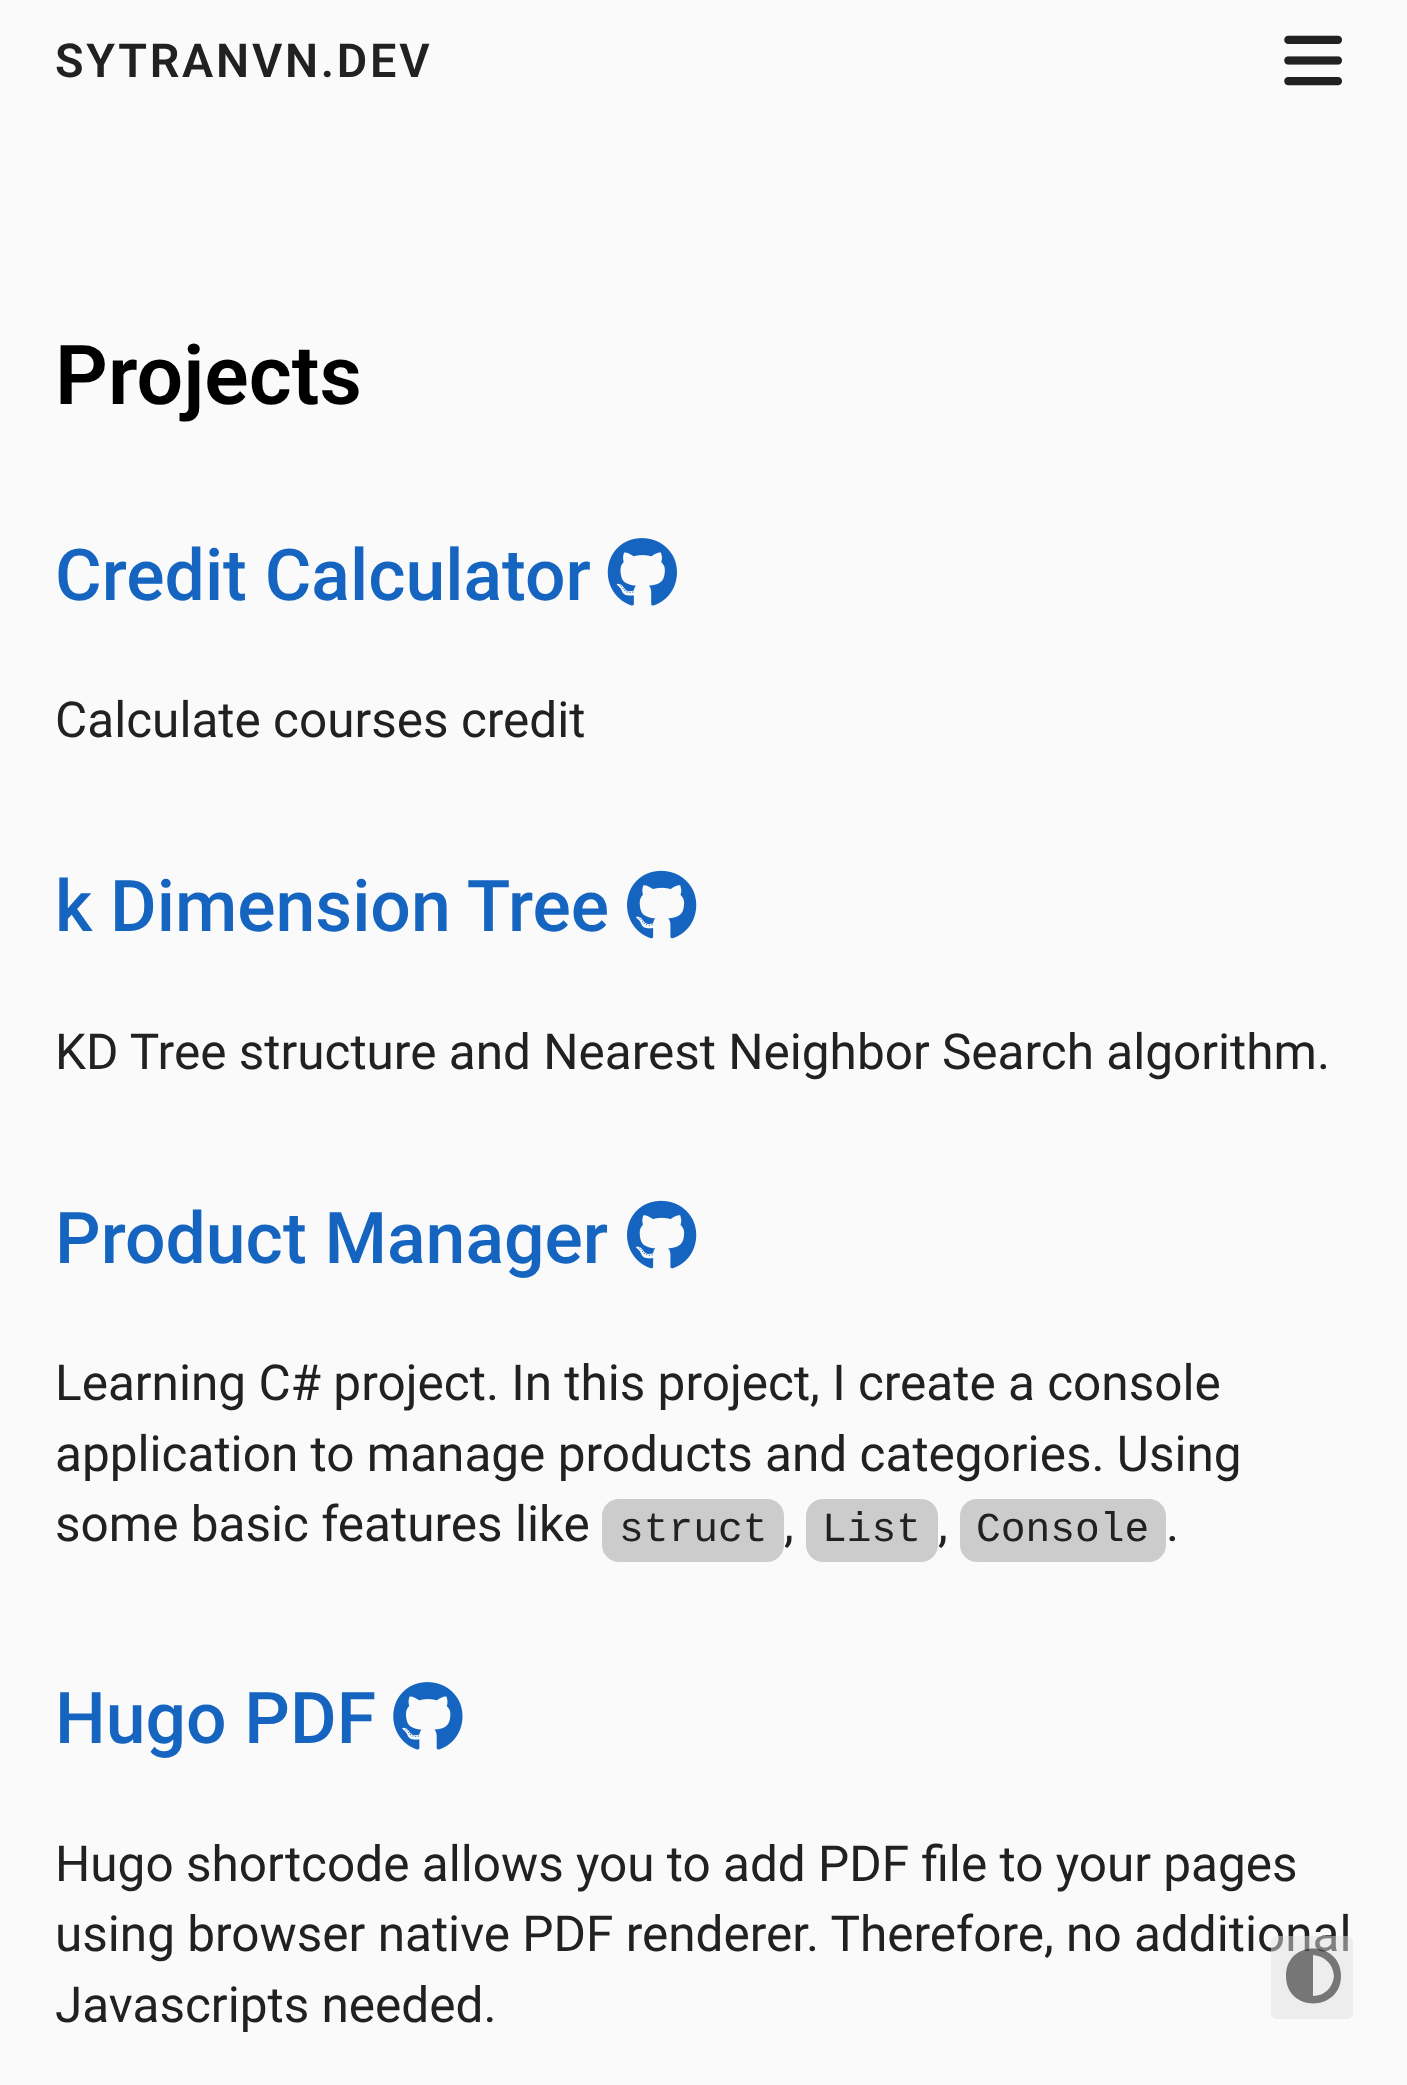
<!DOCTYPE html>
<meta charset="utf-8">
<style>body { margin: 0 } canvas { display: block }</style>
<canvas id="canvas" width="1407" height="2085"></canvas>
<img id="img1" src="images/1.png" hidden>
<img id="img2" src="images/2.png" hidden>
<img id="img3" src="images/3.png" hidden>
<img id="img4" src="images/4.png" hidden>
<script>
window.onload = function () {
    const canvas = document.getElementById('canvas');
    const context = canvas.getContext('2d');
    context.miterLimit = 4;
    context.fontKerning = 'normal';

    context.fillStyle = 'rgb(250, 250, 250)';
    context.fillRect(0, 0, 1407, 2085);
    context.drawImage(document.getElementById('img1'), 1284, 35, 58, 51);
    context.drawImage(document.getElementById('img2'), 607, 538, 70, 68);
    context.drawImage(document.getElementById('img3'), 627, 870, 70, 69);
    context.drawImage(document.getElementById('img3'), 627, 1200, 70, 69);
    context.fillStyle = 'rgb(204, 204, 204)';
    context.beginPath();
    context.roundRect(602, 1499, 182, 63, 17);
    context.fill();
    context.beginPath();
    context.roundRect(806, 1499, 132, 63, 17);
    context.fill();
    context.beginPath();
    context.roundRect(960, 1499, 206, 63, 17);
    context.fill();
    context.drawImage(document.getElementById('img4'), 393, 1682, 70, 68);
    context.letterSpacing = '2.75px';
    context.font = '600 46.75px Roboto';
    context.fillStyle = 'rgb(33, 33, 33)';
    context.fillText('SYTRANVN.DEV', 55, 77);
    context.letterSpacing = '0px';
    context.font = '600 82.5px Roboto';
    context.fillStyle = 'rgb(0, 0, 0)';
    context.fillText('Projects', 55, 404);
    context.font = '500 71.5px Roboto';
    context.fillStyle = 'rgb(21, 101, 192)';
    context.fillText('Credit Calculator', 55, 600);
    context.font = '49.5px Roboto';
    context.fillStyle = 'rgb(33, 33, 33)';
    context.fillText('Calculate courses credit', 55, 737);
    context.font = '500 71.5px Roboto';
    context.fillStyle = 'rgb(21, 101, 192)';
    context.fillText('k Dimension Tree', 55, 931);
    context.font = '49.5px Roboto';
    context.fillStyle = 'rgb(33, 33, 33)';
    context.fillText('KD Tree structure and Nearest Neighbor Search algorithm.', 55, 1069);
    context.font = '500 71.5px Roboto';
    context.fillStyle = 'rgb(21, 101, 192)';
    context.fillText('Product Manager', 55, 1263);
    context.font = '49.5px Roboto';
    context.fillStyle = 'rgb(33, 33, 33)';
    context.fillText('Learning C# project. In this project, I create a console', 55, 1400);
    context.fillText('application to manage products and categories. Using', 55, 1471);
    context.fillText('some basic features like', 55, 1541);
    context.font = '41.25px Liberation Mono';
    context.fillText('struct', 619, 1541);
    context.font = '49.5px Roboto';
    context.fillText(',', 784, 1541);
    context.font = '41.25px Liberation Mono';
    context.fillText('List', 822, 1541);
    context.font = '49.5px Roboto';
    context.fillText(',', 938, 1541);
    context.font = '41.25px Liberation Mono';
    context.fillText('Console', 976, 1541);
    context.font = '49.5px Roboto';
    context.fillText('.', 1166, 1541);
    context.font = '500 71.5px Roboto';
    context.fillStyle = 'rgb(21, 101, 192)';
    context.fillText('Hugo PDF', 55, 1743);
    context.font = '49.5px Roboto';
    context.fillStyle = 'rgb(33, 33, 33)';
    context.fillText('Hugo shortcode allows you to add PDF file to your pages', 55, 1881);
    context.fillText('using browser native PDF renderer. Therefore, no additional', 55, 1951);
    context.fillText('Javascripts needed.', 55, 2022);
    context.fillStyle = 'rgba(224, 224, 224, 0.5)';
    context.beginPath();
    context.roundRect(1271, 1936, 82, 83, 6);
    context.fill();
    context.fillStyle = 'rgba(0, 0, 0, 0.5)';
    context.beginPath();
    context.moveTo(1334, 1976);
    context.bezierCurveTo(1333, 1964, 1325, 1956, 1313, 1955);
    context.lineTo(1313, 1996);
    context.bezierCurveTo(1325, 1996, 1333, 1987, 1334, 1976);
    context.closePath();
    context.moveTo(1286, 1976);
    context.bezierCurveTo(1286, 1939, 1341, 1940, 1341, 1976);
    context.bezierCurveTo(1341, 2012, 1286, 2013, 1286, 1976);
    context.closePath();
    context.fill();
};
</script>
